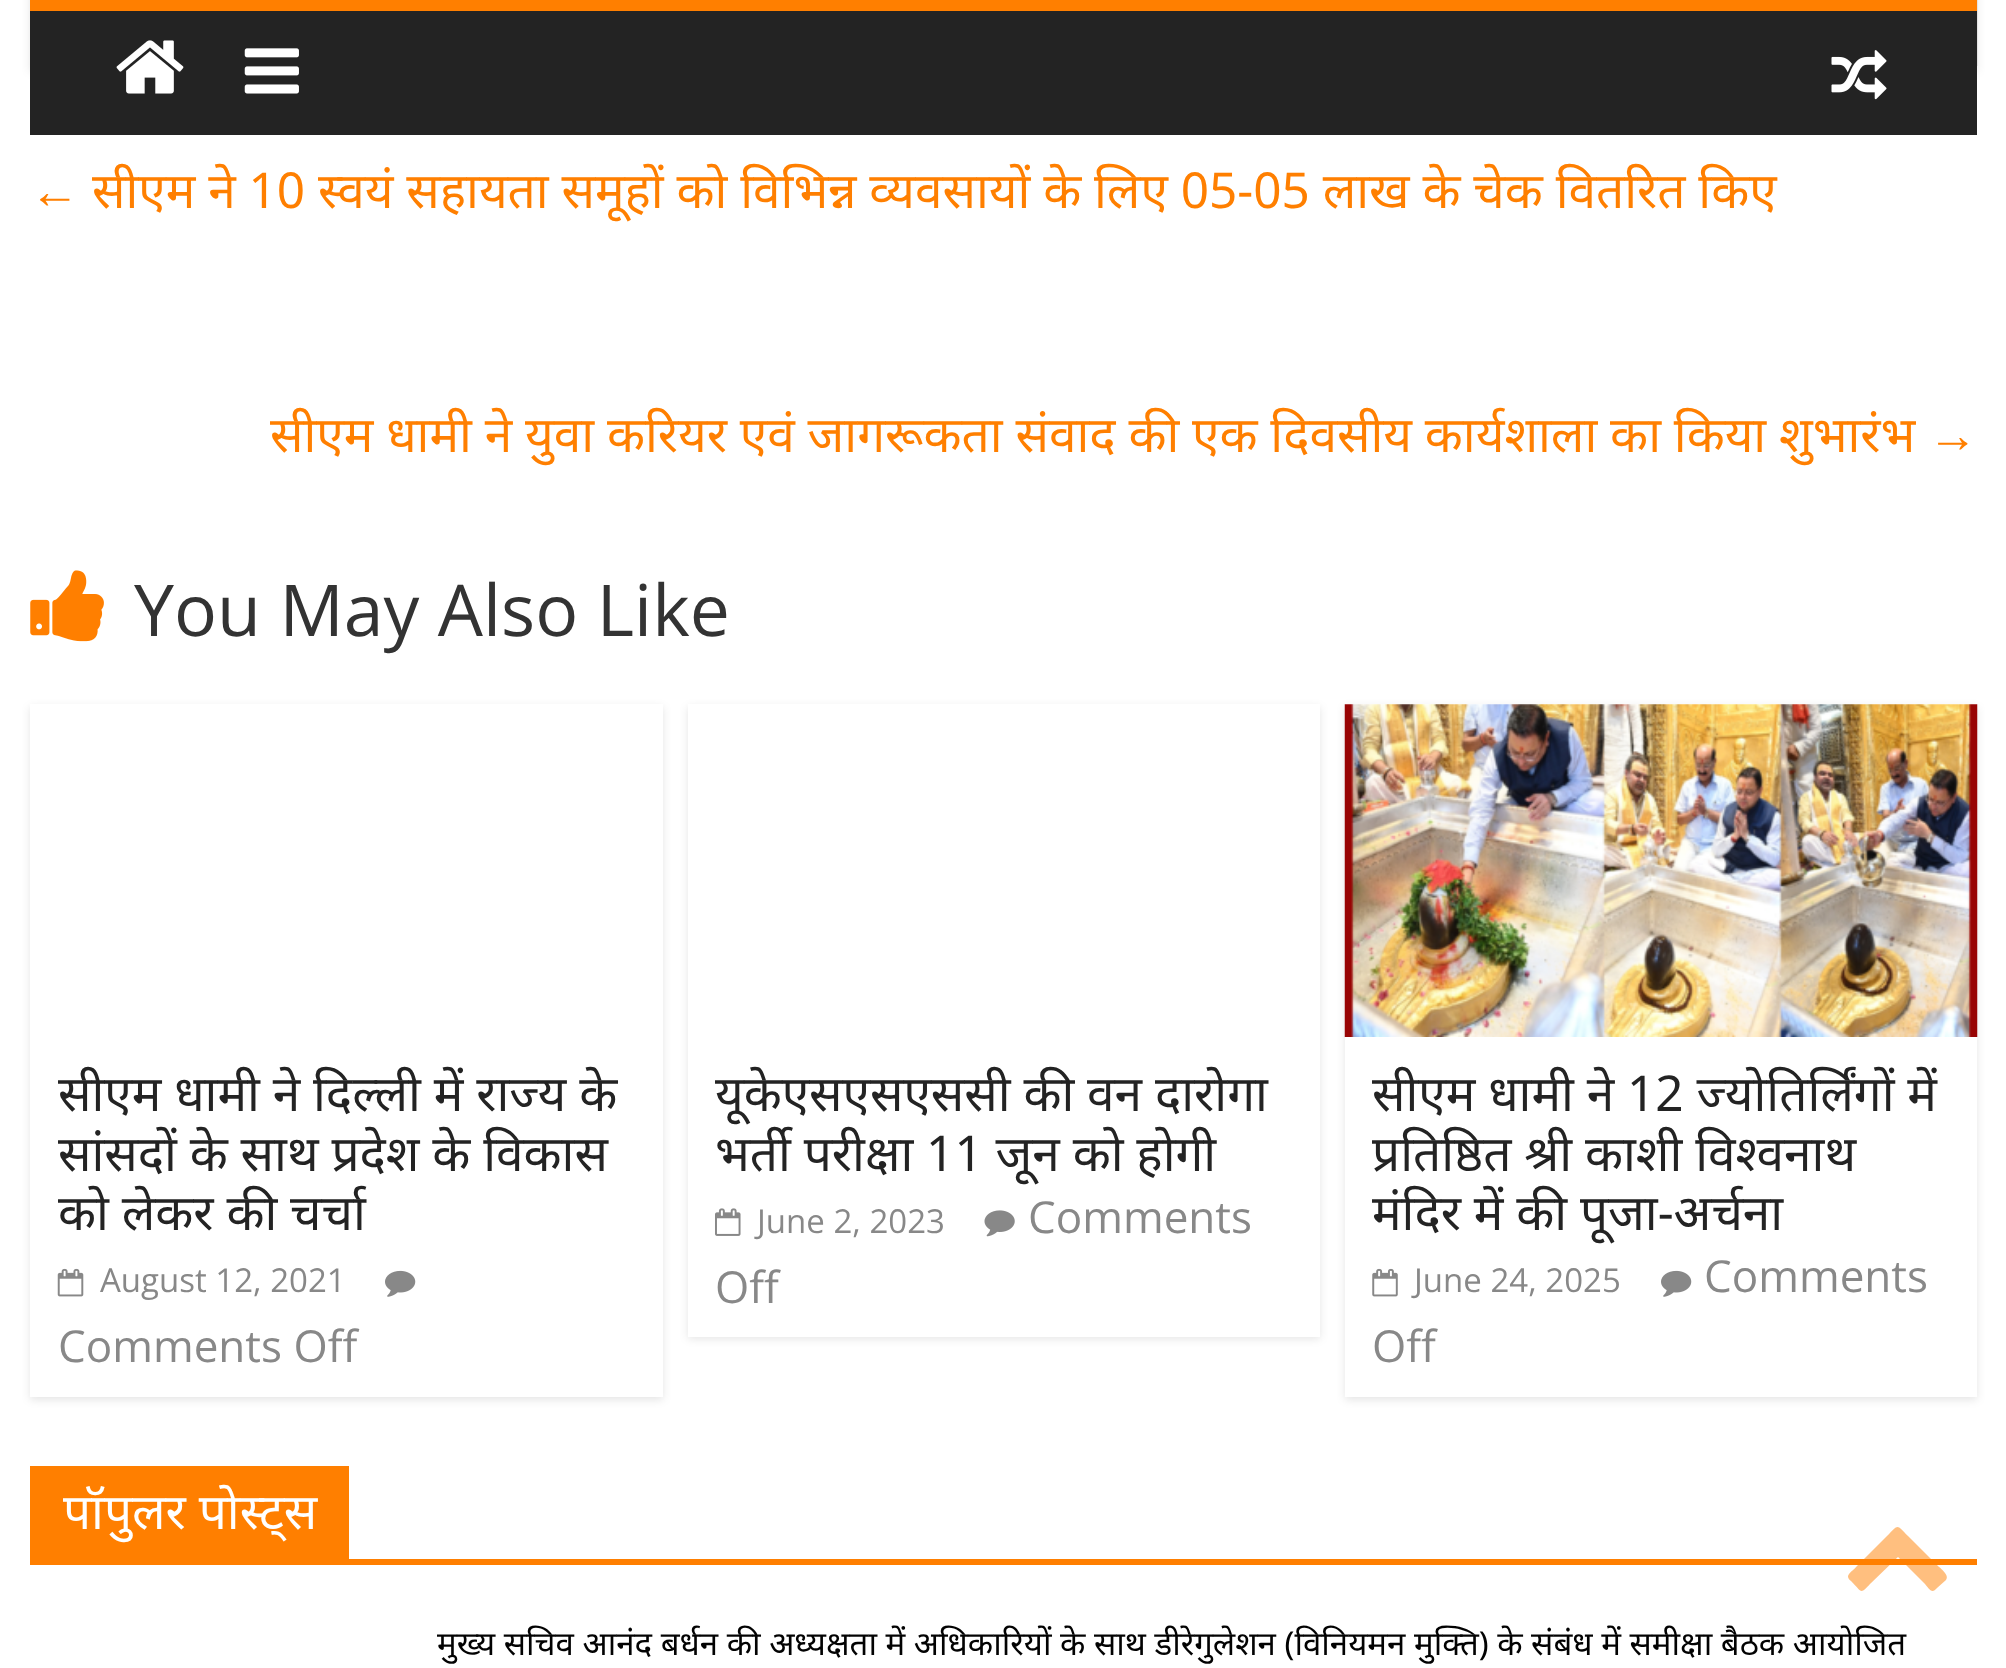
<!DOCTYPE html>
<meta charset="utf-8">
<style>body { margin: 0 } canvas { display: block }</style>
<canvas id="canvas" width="2006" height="1668"></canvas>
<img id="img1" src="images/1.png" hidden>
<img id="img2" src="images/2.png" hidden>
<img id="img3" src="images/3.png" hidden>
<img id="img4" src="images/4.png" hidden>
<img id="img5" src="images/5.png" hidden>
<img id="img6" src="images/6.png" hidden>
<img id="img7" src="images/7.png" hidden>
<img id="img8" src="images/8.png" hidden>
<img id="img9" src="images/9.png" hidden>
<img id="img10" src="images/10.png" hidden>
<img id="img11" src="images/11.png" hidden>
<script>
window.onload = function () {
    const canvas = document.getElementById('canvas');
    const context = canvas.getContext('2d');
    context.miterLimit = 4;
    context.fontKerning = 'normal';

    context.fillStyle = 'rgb(255, 255, 255)';
    context.fillRect(0, 0, 2006, 1668);
    context.fillStyle = 'rgba(0, 0, 0, 0.1)';
    context.filter = 'blur(4px)';
    context.beginPath();
    context.rect(30, -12, 1947, 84);
    context.fill();
    context.filter = 'none';
    context.fillStyle = 'rgb(35, 35, 35)';
    context.fillRect(30, 11, 1947, 124);
    context.fillStyle = 'rgb(255, 127, 0)';
    context.fillRect(30, 0, 1947, 11);
    context.drawImage(document.getElementById('img1'), 116, 40, 68, 54);
    context.drawImage(document.getElementById('img2'), 244, 48, 55, 46);
    context.drawImage(document.getElementById('img3'), 1831, 50, 56, 50);
    context.drawImage(document.getElementById('img4'), 1977, 0, 1, 66);
    context.drawImage(document.getElementById('img5'), 30, 570, 74, 72);
    context.save();
    context.beginPath();
    context.moveTo(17, 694);
    context.lineTo(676, 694);
    context.lineTo(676, 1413);
    context.lineTo(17, 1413);
    context.closePath();
    context.moveTo(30, 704);
    context.lineTo(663, 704);
    context.lineTo(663, 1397);
    context.lineTo(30, 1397);
    context.closePath();
    context.clip('evenodd');
    context.fillStyle = 'rgba(0, 0, 0, 0.1)';
    context.filter = 'blur(4px)';
    context.beginPath();
    context.rect(30, 707, 633, 693);
    context.fill();
    context.filter = 'none';
    context.restore();
    context.drawImage(document.getElementById('img6'), 57, 1268, 27, 29);
    context.drawImage(document.getElementById('img7'), 385, 1270, 31, 27);
    context.save();
    context.beginPath();
    context.moveTo(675, 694);
    context.lineTo(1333, 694);
    context.lineTo(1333, 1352);
    context.lineTo(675, 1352);
    context.closePath();
    context.moveTo(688, 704);
    context.lineTo(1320, 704);
    context.lineTo(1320, 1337);
    context.lineTo(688, 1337);
    context.closePath();
    context.clip('evenodd');
    context.fillStyle = 'rgba(0, 0, 0, 0.1)';
    context.filter = 'blur(4px)';
    context.beginPath();
    context.rect(688, 707, 632, 632);
    context.fill();
    context.filter = 'none';
    context.restore();
    context.drawImage(document.getElementById('img8'), 984, 1210, 31, 27);
    context.drawImage(document.getElementById('img9'), 715, 1208, 26, 28);
    context.save();
    context.beginPath();
    context.moveTo(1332, 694);
    context.lineTo(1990, 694);
    context.lineTo(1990, 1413);
    context.lineTo(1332, 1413);
    context.closePath();
    context.moveTo(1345, 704);
    context.lineTo(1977, 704);
    context.lineTo(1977, 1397);
    context.lineTo(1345, 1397);
    context.closePath();
    context.clip('evenodd');
    context.fillStyle = 'rgba(0, 0, 0, 0.1)';
    context.filter = 'blur(4px)';
    context.beginPath();
    context.rect(1345, 707, 632, 693);
    context.fill();
    context.filter = 'none';
    context.restore();
    context.drawImage(document.getElementById('img10'), 1344, 704, 634, 333);
    context.drawImage(document.getElementById('img7'), 1661, 1270, 31, 27);
    context.drawImage(document.getElementById('img11'), 1372, 1268, 26, 29);
    context.fillRect(30, 1559, 1947, 6);
    context.fillRect(30, 1466, 319, 93);
    context.fillStyle = 'rgba(255, 127, 0, 0.5)';
    context.beginPath();
    context.moveTo(1946, 1580);
    context.lineTo(1937, 1588);
    context.bezierCurveTo(1932, 1594, 1930, 1590, 1925, 1584);
    context.lineTo(1898, 1557);
    context.lineTo(1870, 1584);
    context.bezierCurveTo(1860, 1595, 1862, 1592, 1851, 1581);
    context.bezierCurveTo(1844, 1575, 1851, 1573, 1857, 1566);
    context.lineTo(1887, 1536);
    context.bezierCurveTo(1899, 1524, 1896, 1524, 1908, 1536);
    context.lineTo(1938, 1566);
    context.bezierCurveTo(1940, 1568, 1950, 1575, 1946, 1580);
    context.closePath();
    context.fill();
    context.font = '49.5px Liberation Serif';
    context.fillStyle = 'rgb(255, 127, 0)';
    context.fillText('←', 30, 208);
    context.font = '49.5px Noto Sans';
    context.fillText('सीएम ने 10 स्वयं सहायता समूहों को विभिन्न व्यवसायों के लिए 05-05 लाख के चेक वितरित किए', 92, 208);
    context.fillText('सीएम धामी ने युवा करियर एवं जागरूकता संवाद की एक दिवसीय कार्यशाला का किया शुभारंभ', 270, 452);
    context.font = '49.5px Liberation Serif';
    context.fillText('→', 1928, 452);
    context.font = '71.5px Open Sans';
    context.fillStyle = 'rgb(51, 51, 51)';
    context.fillText('You May Also Like', 134, 636);
    context.font = '49.5px Noto Sans';
    context.fillStyle = 'rgb(35, 35, 35)';
    context.fillText('सीएम धामी ने दिल्ली में राज्य के', 58, 1111);
    context.fillText('सांसदों के साथ प्रदेश के विकास', 58, 1171);
    context.fillText('को लेकर की चर्चा', 58, 1230);
    context.font = '33px Open Sans';
    context.fillStyle = 'rgb(136, 136, 136)';
    context.fillText('August 12, 2021', 100, 1292);
    context.font = '44px Open Sans';
    context.fillText('Comments Off', 58, 1362);
    context.font = '49.5px Noto Sans';
    context.fillStyle = 'rgb(35, 35, 35)';
    context.fillText('यूकेएसएसएससी की वन दारोगा', 715, 1111);
    context.fillText('भर्ती परीक्षा 11 जून को होगी', 715, 1171);
    context.font = '44px Open Sans';
    context.fillStyle = 'rgb(136, 136, 136)';
    context.fillText('Comments', 1028, 1233);
    context.fillText('Off', 715, 1303);
    context.font = '33px Open Sans';
    context.fillText('June 2, 2023', 757, 1233);
    context.font = '49.5px Noto Sans';
    context.fillStyle = 'rgb(35, 35, 35)';
    context.fillText('सीएम धामी ने 12 ज्योतिर्लिंगों में', 1372, 1111);
    context.fillText('प्रतिष्ठित श्री काशी विश्वनाथ', 1372, 1171);
    context.fillText('मंदिर में की पूजा-अर्चना', 1372, 1230);
    context.font = '44px Open Sans';
    context.fillStyle = 'rgb(136, 136, 136)';
    context.fillText('Comments', 1704, 1292);
    context.fillText('Off', 1372, 1362);
    context.font = '33px Open Sans';
    context.fillText('June 24, 2025', 1414, 1292);
    context.font = '49.5px Noto Sans';
    context.fillStyle = 'rgb(255, 255, 255)';
    context.fillText('पॉपुलर पोस्ट्स', 63, 1529);
    context.font = '33px Noto Sans';
    context.fillStyle = 'rgb(2, 2, 2)';
    context.fillText('मुख्य सचिव आनंद बर्धन की अध्यक्षता में अधिकारियों के साथ डीरेगुलेशन (विनियमन मुक्ति) के संबंध में समीक्षा बैठक आयोजित', 437, 1655);
};
</script>
